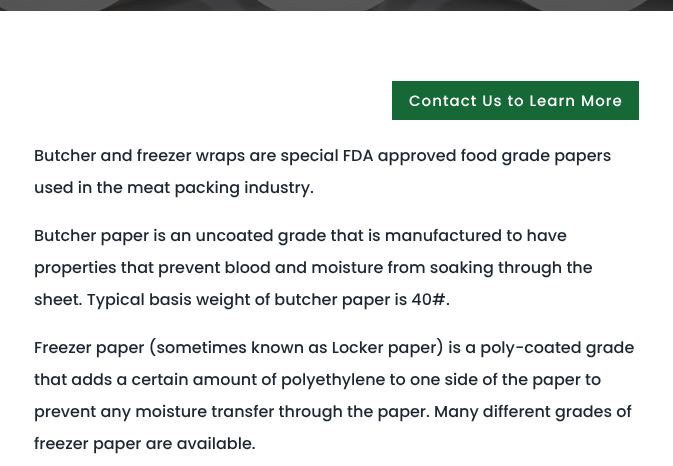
<!DOCTYPE html>
<meta charset="utf-8">
<style>body { margin: 0 } canvas { display: block }</style>
<canvas id="canvas" width="673" height="466"></canvas>
<img id="img1" src="images/1.png" hidden>
<script>
window.onload = function () {
    const canvas = document.getElementById('canvas');
    const context = canvas.getContext('2d');
    context.miterLimit = 4;
    context.fontKerning = 'normal';

    context.fillStyle = 'rgb(255, 255, 255)';
    context.fillRect(0, 0, 673, 466);
    context.drawImage(document.getElementById('img1'), 0, 0, 673, 11);
    context.fillStyle = 'rgb(22, 105, 54)';
    context.fillRect(392, 81, 247, 39);
    context.letterSpacing = '1px';
    context.font = '500 15px Poppins';
    context.fillStyle = 'rgb(255, 255, 255)';
    context.fillText('Contact Us to Learn More', 409, 106);
    context.letterSpacing = '0px';
    context.font = '500 16px Poppins';
    context.fillStyle = 'rgb(30, 39, 49)';
    context.fillText('Butcher and freezer wraps are special FDA approved food grade papers', 34, 161);
    context.fillText('used in the meat packing industry.', 34, 193);
    context.fillText('Butcher paper is an uncoated grade that is manufactured to have', 34, 241);
    context.fillText('properties that prevent blood and moisture from soaking through the', 34, 273);
    context.fillText('sheet. Typical basis weight of butcher paper is 40#.', 34, 305);
    context.fillText('Freezer paper (sometimes known as Locker paper) is a poly-coated grade', 34, 353);
    context.fillText('that adds a certain amount of polyethylene to one side of the paper to', 34, 385);
    context.fillText('prevent any moisture transfer through the paper. Many different grades of', 34, 417);
    context.fillText('freezer paper are available.', 34, 449);
};
</script>
